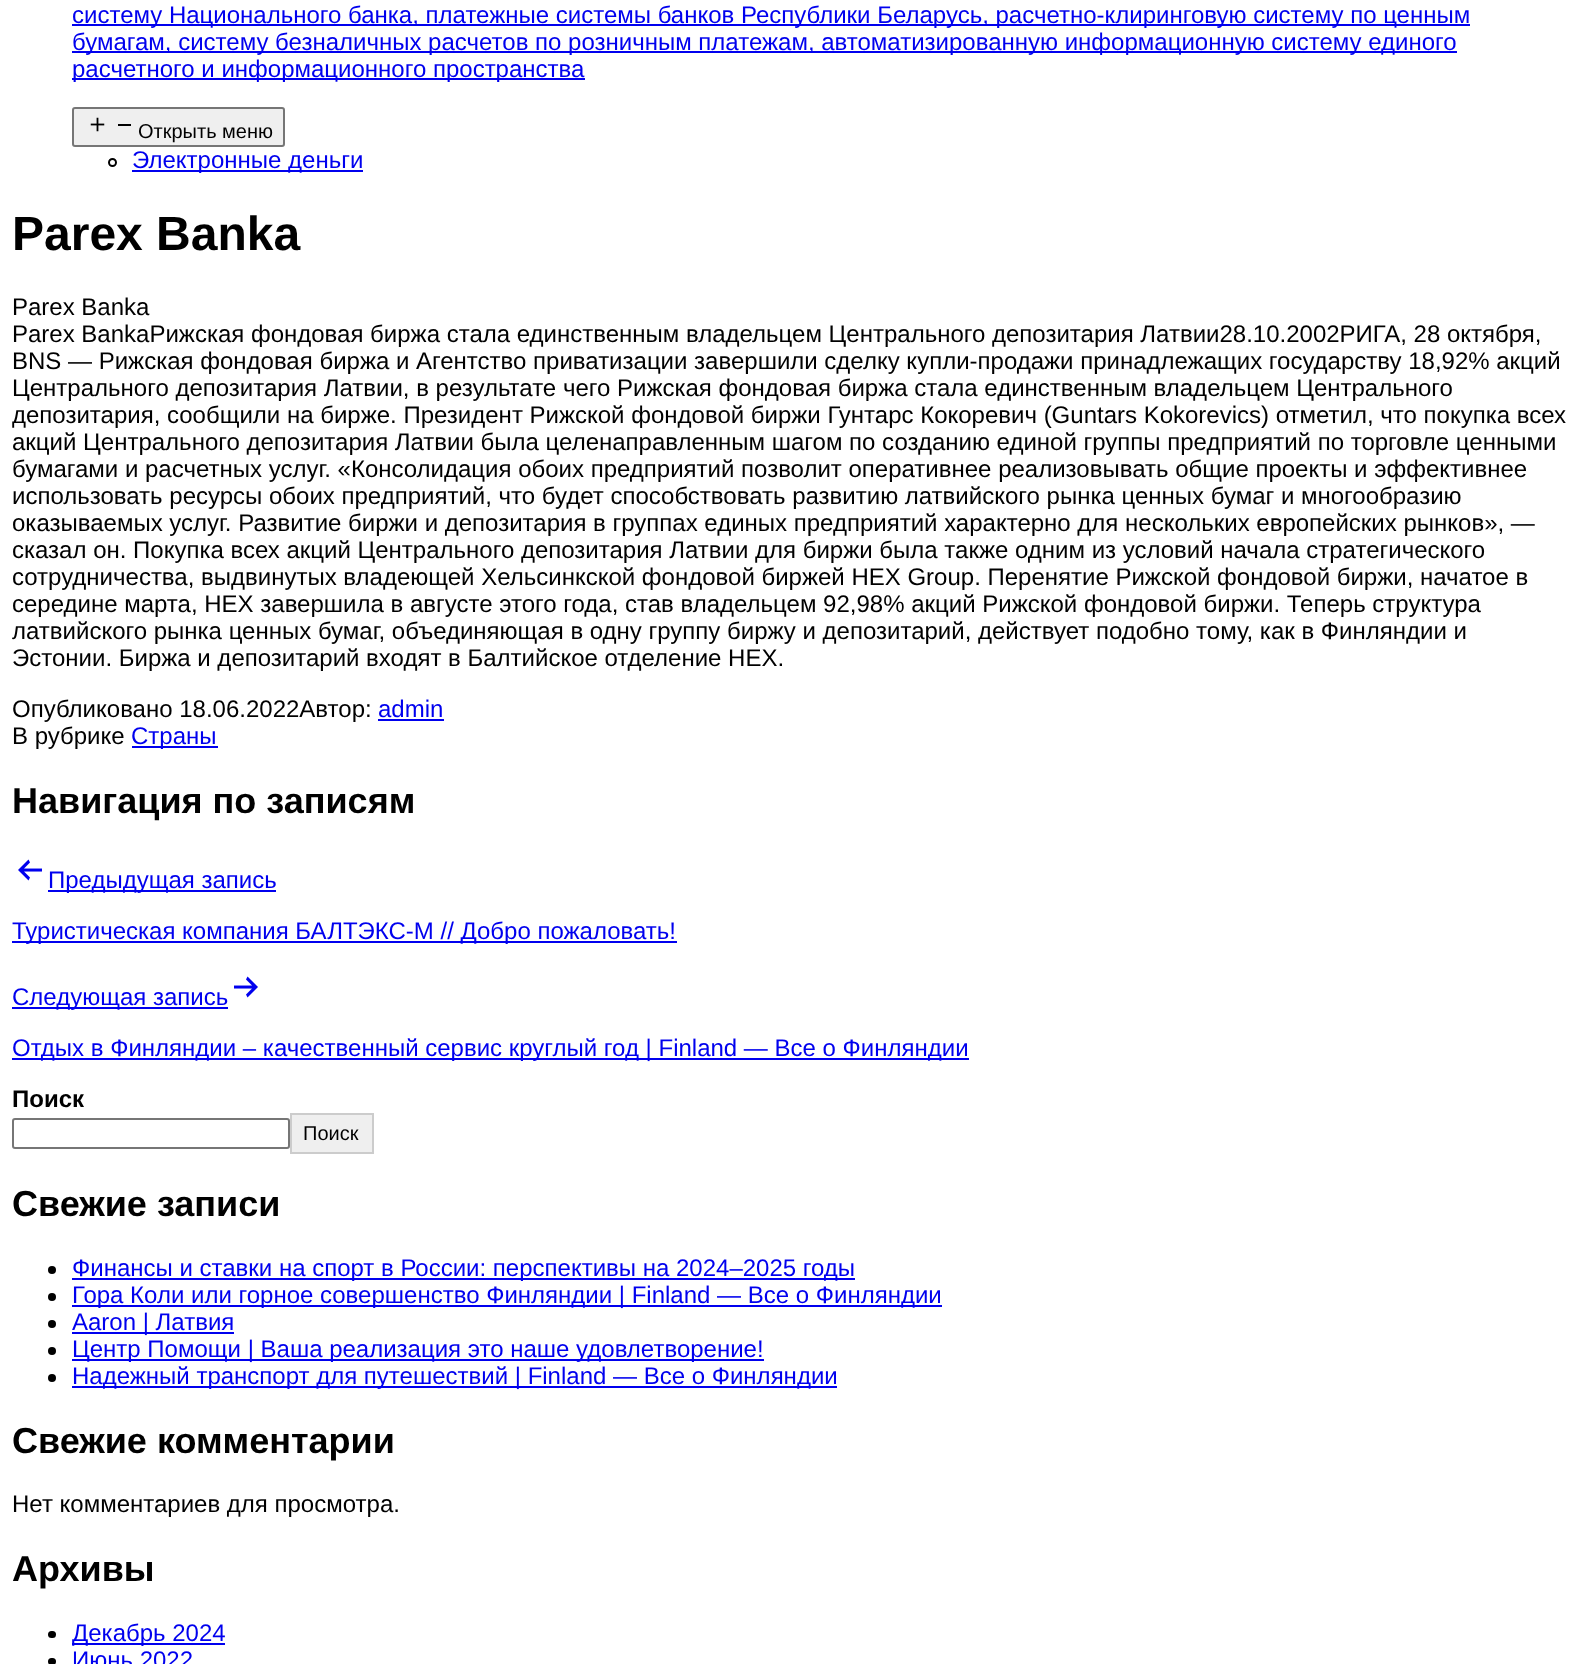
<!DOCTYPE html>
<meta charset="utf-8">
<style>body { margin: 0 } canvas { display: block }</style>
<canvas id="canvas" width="1582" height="1664"></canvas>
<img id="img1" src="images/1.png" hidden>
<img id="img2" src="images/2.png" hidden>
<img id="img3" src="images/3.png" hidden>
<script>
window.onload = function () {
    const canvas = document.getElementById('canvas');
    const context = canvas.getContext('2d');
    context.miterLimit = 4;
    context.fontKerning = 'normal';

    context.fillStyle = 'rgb(255, 255, 255)';
    context.fillRect(0, 0, 1582, 1664);
    context.fillStyle = 'rgb(0, 0, 238)';
    context.fillRect(72, 24, 1398, 2);
    context.fillRect(72, 51, 1385, 2);
    context.fillRect(72, 78, 513, 2);
    context.fillStyle = 'rgb(239, 239, 239)';
    context.beginPath();
    context.roundRect(73, 108, 211, 38, 2);
    context.fill();
    context.strokeStyle = 'rgb(118, 118, 118)';
    context.lineWidth = 2;
    context.stroke();
    context.drawImage(document.getElementById('img1'), 90, 117, 15, 15);
    context.fillStyle = 'rgb(0, 0, 0)';
    context.fillRect(118, 124, 13, 2);
    context.beginPath();
    context.arc(112.5, 162.5, 3.5, 0, 2 * Math.PI);
    context.strokeStyle = 'rgb(0, 0, 0)';
    context.stroke();
    context.fillStyle = 'rgb(0, 0, 238)';
    context.fillRect(132, 170, 231, 2);
    context.fillRect(378, 719, 66, 2);
    context.fillRect(132, 746, 86, 2);
    context.drawImage(document.getElementById('img2'), 18, 859, 24, 22);
    context.fillRect(48, 890, 228, 2);
    context.fillRect(12, 941, 665, 2);
    context.fillRect(12, 1007, 216, 2);
    context.drawImage(document.getElementById('img3'), 234, 976, 24, 22);
    context.fillRect(12, 1058, 957, 2);
    context.beginPath();
    context.roundRect(13, 1119, 276, 29, 2);
    context.strokeStyle = 'rgb(118, 118, 118)';
    context.stroke();
    context.fillStyle = 'rgb(239, 239, 239)';
    context.beginPath();
    context.rect(291, 1114, 82, 39);
    context.fill();
    context.strokeStyle = 'rgb(204, 204, 204)';
    context.stroke();
    context.fillStyle = 'rgb(0, 0, 0)';
    context.beginPath();
    context.arc(52, 1270, 4, 0, 2 * Math.PI);
    context.fill();
    context.fillStyle = 'rgb(0, 0, 238)';
    context.fillRect(72, 1278, 783, 2);
    context.fillStyle = 'rgb(0, 0, 0)';
    context.beginPath();
    context.arc(52, 1297, 4, 0, 2 * Math.PI);
    context.fill();
    context.fillStyle = 'rgb(0, 0, 238)';
    context.fillRect(72, 1305, 870, 2);
    context.fillStyle = 'rgb(0, 0, 0)';
    context.beginPath();
    context.arc(52, 1324, 4, 0, 2 * Math.PI);
    context.fill();
    context.fillStyle = 'rgb(0, 0, 238)';
    context.fillRect(72, 1332, 162, 2);
    context.fillStyle = 'rgb(0, 0, 0)';
    context.beginPath();
    context.arc(52, 1351, 4, 0, 2 * Math.PI);
    context.fill();
    context.fillStyle = 'rgb(0, 0, 238)';
    context.fillRect(72, 1359, 692, 2);
    context.fillStyle = 'rgb(0, 0, 0)';
    context.beginPath();
    context.arc(52, 1378, 4, 0, 2 * Math.PI);
    context.fill();
    context.fillStyle = 'rgb(0, 0, 238)';
    context.fillRect(72, 1386, 765, 2);
    context.fillStyle = 'rgb(0, 0, 0)';
    context.beginPath();
    context.roundRect(48, 1631, 8, 7, 3.5);
    context.fill();
    context.fillStyle = 'rgb(0, 0, 238)';
    context.fillRect(72, 1643, 153, 2);
    context.fillStyle = 'rgb(0, 0, 0)';
    context.beginPath();
    context.roundRect(48, 1658, 8, 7, 3.5);
    context.fill();
    context.font = '24px Liberation Sans';
    context.fillStyle = 'rgb(0, 0, 238)';
    context.fillText('систему Национального банка, платежные системы банков Республики Беларусь, расчетно-клиринговую систему по ценным', 72, 23);
    context.fillText('бумагам, систему безналичных расчетов по розничным платежам, автоматизированную информационную систему единого', 72, 50);
    context.fillText('расчетного и информационного пространства', 72, 77);
    context.font = '20px Liberation Sans';
    context.fillStyle = 'rgb(0, 0, 0)';
    context.fillText('Открыть меню', 138, 138);
    context.font = '24px Liberation Sans';
    context.fillStyle = 'rgb(0, 0, 238)';
    context.fillText('Электронные деньги', 132, 168);
    context.font = 'bold 48px Liberation Sans';
    context.fillStyle = 'rgb(0, 0, 0)';
    context.fillText('Parex Banka', 12, 250);
    context.font = '24px Liberation Sans';
    context.fillText('Parex Banka', 12, 315);
    context.fillText('Parex BankaРижская фондовая биржа стала единственным владельцем Центрального депозитария Латвии28.10.2002РИГА, 28 октября,', 12, 342);
    context.fillText('BNS — Рижская фондовая биржа и Агентство приватизации завершили сделку купли-продажи принадлежащих государству 18,92% акций', 12, 369);
    context.fillText('Центрального депозитария Латвии, в результате чего Рижская фондовая биржа стала единственным владельцем Центрального', 12, 396);
    context.fillText('депозитария, сообщили на бирже. Президент Рижской фондовой биржи Гунтарс Кокоревич (Guntars Kokorevics) отметил, что покупка всех', 12, 423);
    context.fillText('акций Центрального депозитария Латвии была целенаправленным шагом по созданию единой группы предприятий по торговле ценными', 12, 450);
    context.fillText('бумагами и расчетных услуг. «Консолидация обоих предприятий позволит оперативнее реализовывать общие проекты и эффективнее', 12, 477);
    context.fillText('использовать ресурсы обоих предприятий, что будет способствовать развитию латвийского рынка ценных бумаг и многообразию', 12, 504);
    context.fillText('оказываемых услуг. Развитие биржи и депозитария в группах единых предприятий характерно для нескольких европейских рынков», —', 12, 531);
    context.fillText('сказал он. Покупка всех акций Центрального депозитария Латвии для биржи была также одним из условий начала стратегического', 12, 558);
    context.fillText('сотрудничества, выдвинутых владеющей Хельсинкской фондовой биржей HEX Group. Перенятие Рижской фондовой биржи, начатое в', 12, 585);
    context.fillText('середине марта, HEX завершила в августе этого года, став владельцем 92,98% акций Рижской фондовой биржи. Теперь структура', 12, 612);
    context.fillText('латвийского рынка ценных бумаг, объединяющая в одну группу биржу и депозитарий, действует подобно тому, как в Финляндии и', 12, 639);
    context.fillText('Эстонии. Биржа и депозитарий входят в Балтийское отделение HEX.', 12, 666);
    context.fillText('Опубликовано 18.06.2022Автор:', 12, 717);
    context.fillStyle = 'rgb(0, 0, 238)';
    context.fillText('admin', 378, 717);
    context.fillStyle = 'rgb(0, 0, 0)';
    context.fillText('В рубрике', 12, 744);
    context.fillStyle = 'rgb(0, 0, 238)';
    context.fillText('Страны', 131, 744);
    context.font = 'bold 36px Liberation Sans';
    context.fillStyle = 'rgb(0, 0, 0)';
    context.fillText('Навигация по записям', 12, 813);
    context.font = '24px Liberation Sans';
    context.fillStyle = 'rgb(0, 0, 238)';
    context.fillText('Предыдущая запись', 48, 888);
    context.fillText('Туристическая компания БАЛТЭКС-М // Добро пожаловать!', 12, 939);
    context.fillText('Следующая запись', 12, 1005);
    context.fillText('Отдых в Финляндии – качественный сервис круглый год | Finland — Все о Финляндии', 12, 1056);
    context.font = 'bold 24px Liberation Sans';
    context.fillStyle = 'rgb(0, 0, 0)';
    context.fillText('Поиск', 12, 1107);
    context.font = '20px Liberation Sans';
    context.fillText('Поиск', 303, 1140);
    context.font = 'bold 36px Liberation Sans';
    context.fillText('Свежие записи', 12, 1216);
    context.font = '24px Liberation Sans';
    context.fillStyle = 'rgb(0, 0, 238)';
    context.fillText('Финансы и ставки на спорт в России: перспективы на 2024–2025 годы', 72, 1276);
    context.fillText('Гора Коли или горное совершенство Финляндии | Finland — Все о Финляндии', 72, 1303);
    context.fillText('Aaron | Латвия', 72, 1330);
    context.fillText('Центр Помощи | Ваша реализация это наше удовлетворение!', 72, 1357);
    context.fillText('Надежный транспорт для путешествий | Finland — Все о Финляндии', 72, 1384);
    context.font = 'bold 36px Liberation Sans';
    context.fillStyle = 'rgb(0, 0, 0)';
    context.fillText('Свежие комментарии', 12, 1453);
    context.font = '24px Liberation Sans';
    context.fillText('Нет комментариев для просмотра.', 12, 1512);
    context.font = 'bold 36px Liberation Sans';
    context.fillText('Архивы', 12, 1581);
    context.font = '24px Liberation Sans';
    context.fillStyle = 'rgb(0, 0, 238)';
    context.fillText('Декабрь 2024', 72, 1641);
    context.fillText('Июнь 2022', 72, 1668);
};
</script>
